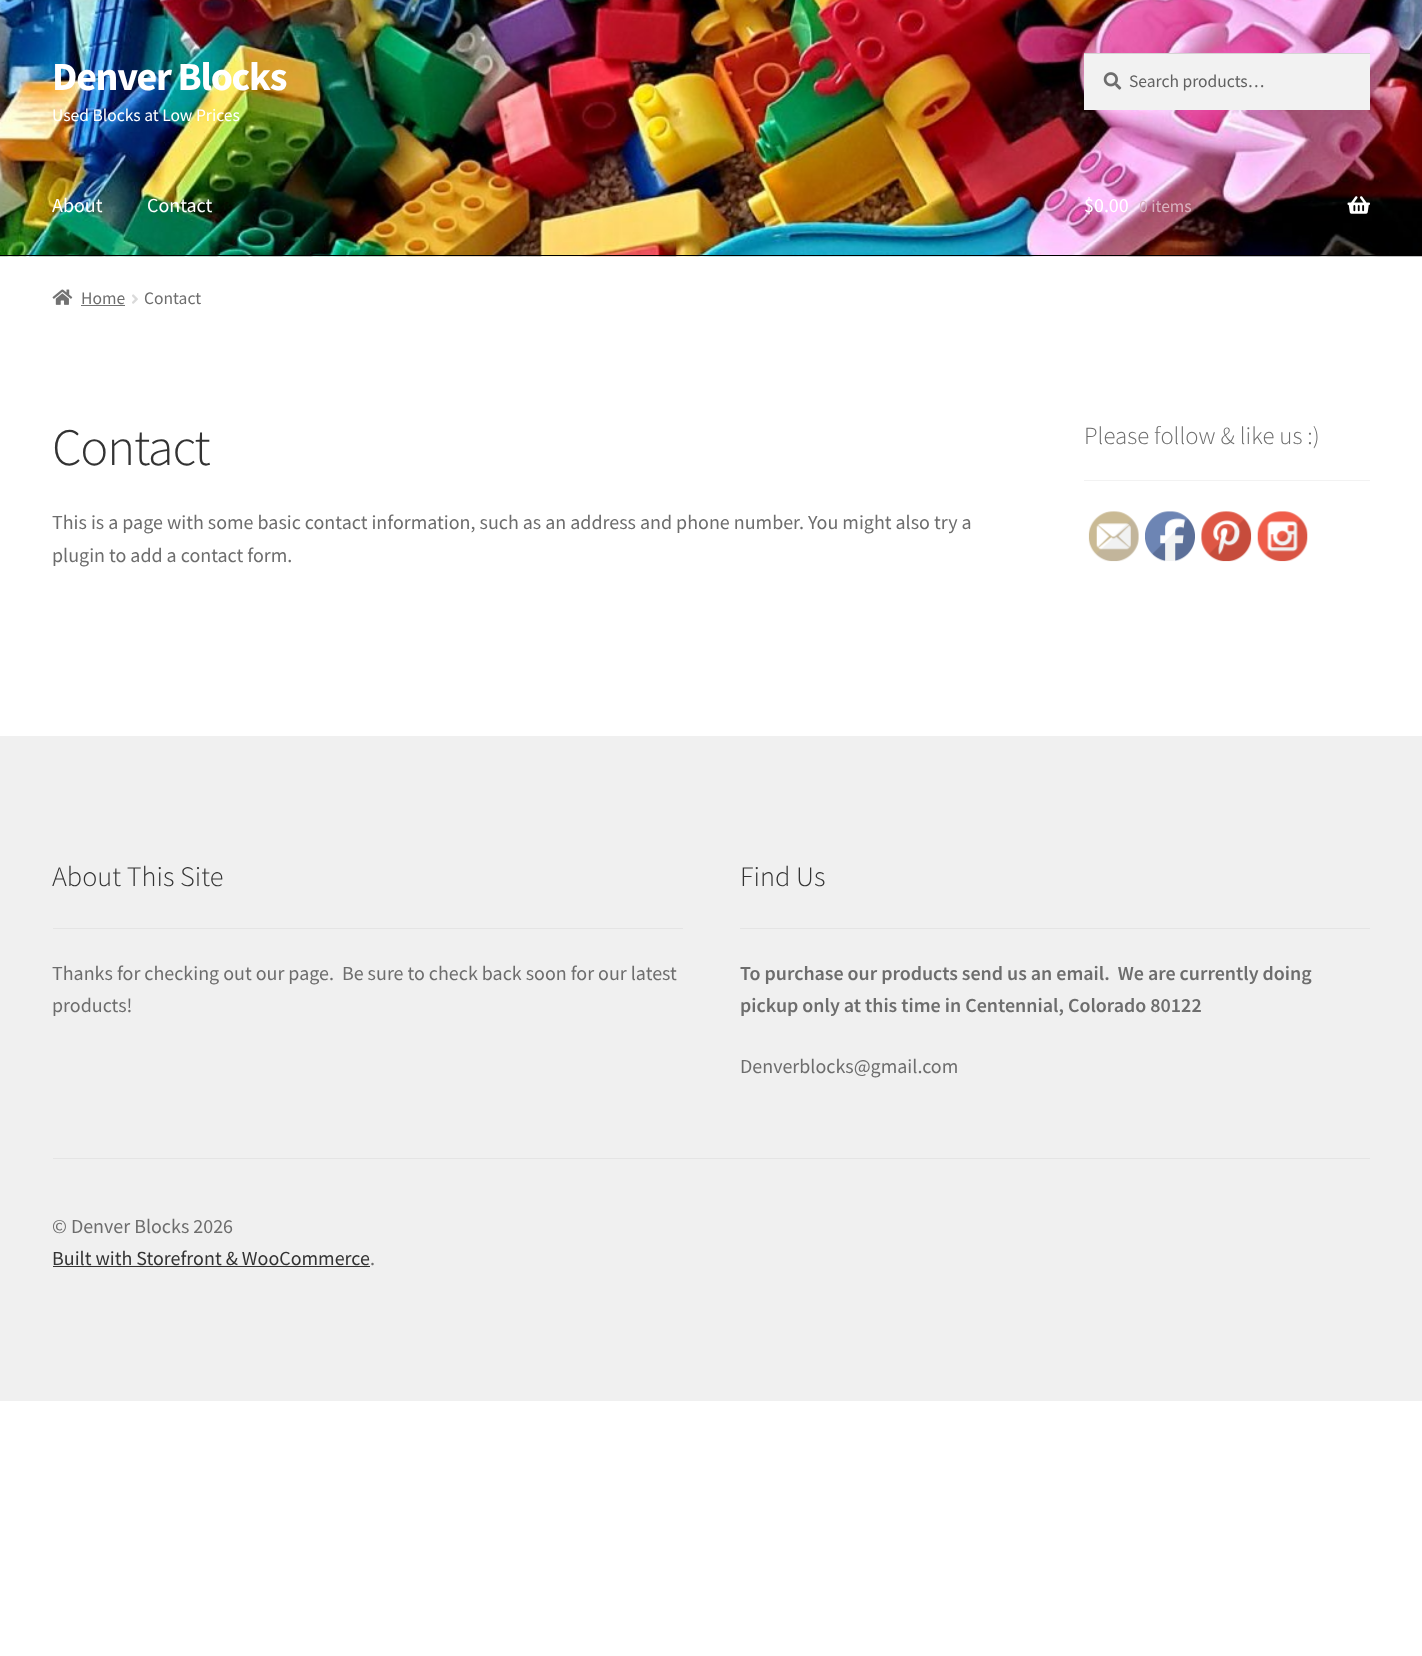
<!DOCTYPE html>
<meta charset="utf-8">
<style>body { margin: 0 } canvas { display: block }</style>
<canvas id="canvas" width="1422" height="1656"></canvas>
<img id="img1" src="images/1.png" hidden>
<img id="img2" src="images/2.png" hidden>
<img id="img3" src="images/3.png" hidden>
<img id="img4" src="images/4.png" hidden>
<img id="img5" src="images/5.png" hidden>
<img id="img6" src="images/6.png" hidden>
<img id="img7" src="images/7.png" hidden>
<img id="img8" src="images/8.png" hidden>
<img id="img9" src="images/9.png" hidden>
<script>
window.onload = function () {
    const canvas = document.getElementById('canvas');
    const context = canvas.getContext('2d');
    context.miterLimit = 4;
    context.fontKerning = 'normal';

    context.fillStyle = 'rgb(255, 255, 255)';
    context.fillRect(0, 0, 1422, 1656);
    context.drawImage(document.getElementById('img1'), 0, 0, 1422, 257);
    context.fillStyle = 'rgb(0, 0, 0)';
    context.fillRect(0, 255, 1383, 1);
    context.fillStyle = 'rgb(242, 242, 242)';
    context.fillRect(1084, 54, 286, 56);
    context.drawImage(document.getElementById('img2'), 1103, 72, 19, 18);
    context.fillStyle = 'rgb(212, 212, 212)';
    context.fillRect(1084, 53, 286, 1);
    context.drawImage(document.getElementById('img3'), 1347, 196, 23, 18);
    context.drawImage(document.getElementById('img4'), 52, 289, 21, 16);
    context.fillStyle = 'rgb(114, 114, 114)';
    context.fillRect(81, 305, 44, 1);
    context.drawImage(document.getElementById('img5'), 132, 294, 6, 10);
    context.fillStyle = 'rgb(242, 242, 242)';
    context.fillRect(1084, 480, 286, 1);
    context.drawImage(document.getElementById('img6'), 1088, 511, 51, 51);
    context.drawImage(document.getElementById('img7'), 1145, 511, 50, 51);
    context.drawImage(document.getElementById('img8'), 1201, 511, 51, 51);
    context.drawImage(document.getElementById('img9'), 1257, 511, 51, 51);
    context.fillStyle = 'rgb(240, 240, 240)';
    context.fillRect(0, 736, 1422, 665);
    context.fillStyle = 'rgb(228, 228, 228)';
    context.fillRect(53, 1158, 1317, 1);
    context.fillRect(53, 928, 630, 1);
    context.fillRect(740, 928, 630, 1);
    context.fillStyle = 'rgb(51, 51, 51)';
    context.fillRect(53, 1266, 317, 1);
    context.letterSpacing = '-1.25px';
    context.font = 'bold 40px Source Sans Pro';
    context.fillStyle = 'rgb(255, 255, 255)';
    context.fillText('Denver Blocks', 52, 90);
    context.letterSpacing = '0px';
    context.font = '17.5px Source Sans Pro';
    context.fillText('Used Blocks at Low Prices', 52, 121);
    context.fillStyle = 'rgb(97, 97, 97)';
    context.fillText('Search products…', 1129, 87);
    context.font = '20px Source Sans Pro';
    context.fillStyle = 'rgb(255, 255, 255)';
    context.fillText('About', 52, 212);
    context.fillText('Contact', 147, 212);
    context.fillText('$0.00', 1084, 212);
    context.font = '17.5px Source Sans Pro';
    context.fillStyle = 'rgb(217, 178, 192)';
    context.fillText('0 items', 1139, 212);
    context.fillStyle = 'rgb(109, 109, 109)';
    context.fillText('Home', 81, 304);
    context.fillText('Contact', 144, 304);
    context.letterSpacing = '-1.25px';
    context.font = '300 52.5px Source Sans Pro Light';
    context.fillStyle = 'rgb(51, 51, 51)';
    context.fillText('Contact', 52, 465);
    context.letterSpacing = '0px';
    context.font = '20px Source Sans Pro';
    context.fillStyle = 'rgb(109, 109, 109)';
    context.fillText('This is a page with some basic contact information, such as an address and phone number. You might also try a', 52, 529);
    context.fillText('plugin to add a contact form.', 52, 562);
    context.font = '300 24.75px Source Sans Pro Light';
    context.fillText('Please follow & like us :)', 1084, 444);
    context.font = '300 28.25px Source Sans Pro Light';
    context.fillStyle = 'rgb(51, 51, 51)';
    context.fillText('About This Site', 52, 886);
    context.font = '20px Source Sans Pro';
    context.fillStyle = 'rgb(109, 109, 109)';
    context.fillText('Thanks for checking out our page.  Be sure to check back soon for our latest', 52, 980);
    context.fillText('products!', 52, 1012);
    context.font = '300 28.25px Source Sans Pro Light';
    context.fillStyle = 'rgb(51, 51, 51)';
    context.fillText('Find Us', 740, 886);
    context.font = '600 20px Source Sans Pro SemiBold';
    context.fillStyle = 'rgb(109, 109, 109)';
    context.fillText('To purchase our products send us an email.  We are currently doing', 740, 980);
    context.fillText('pickup only at this time in Centennial, Colorado 80122', 740, 1012);
    context.font = '20px Source Sans Pro';
    context.fillText('Denverblocks@gmail.com', 740, 1073);
    context.fillText('© Denver Blocks 2026', 52, 1233);
    context.fillStyle = 'rgb(51, 51, 51)';
    context.fillText('Built with Storefront & WooCommerce', 52, 1265);
    context.fillStyle = 'rgb(109, 109, 109)';
    context.fillText('.', 370, 1265);
};
</script>
